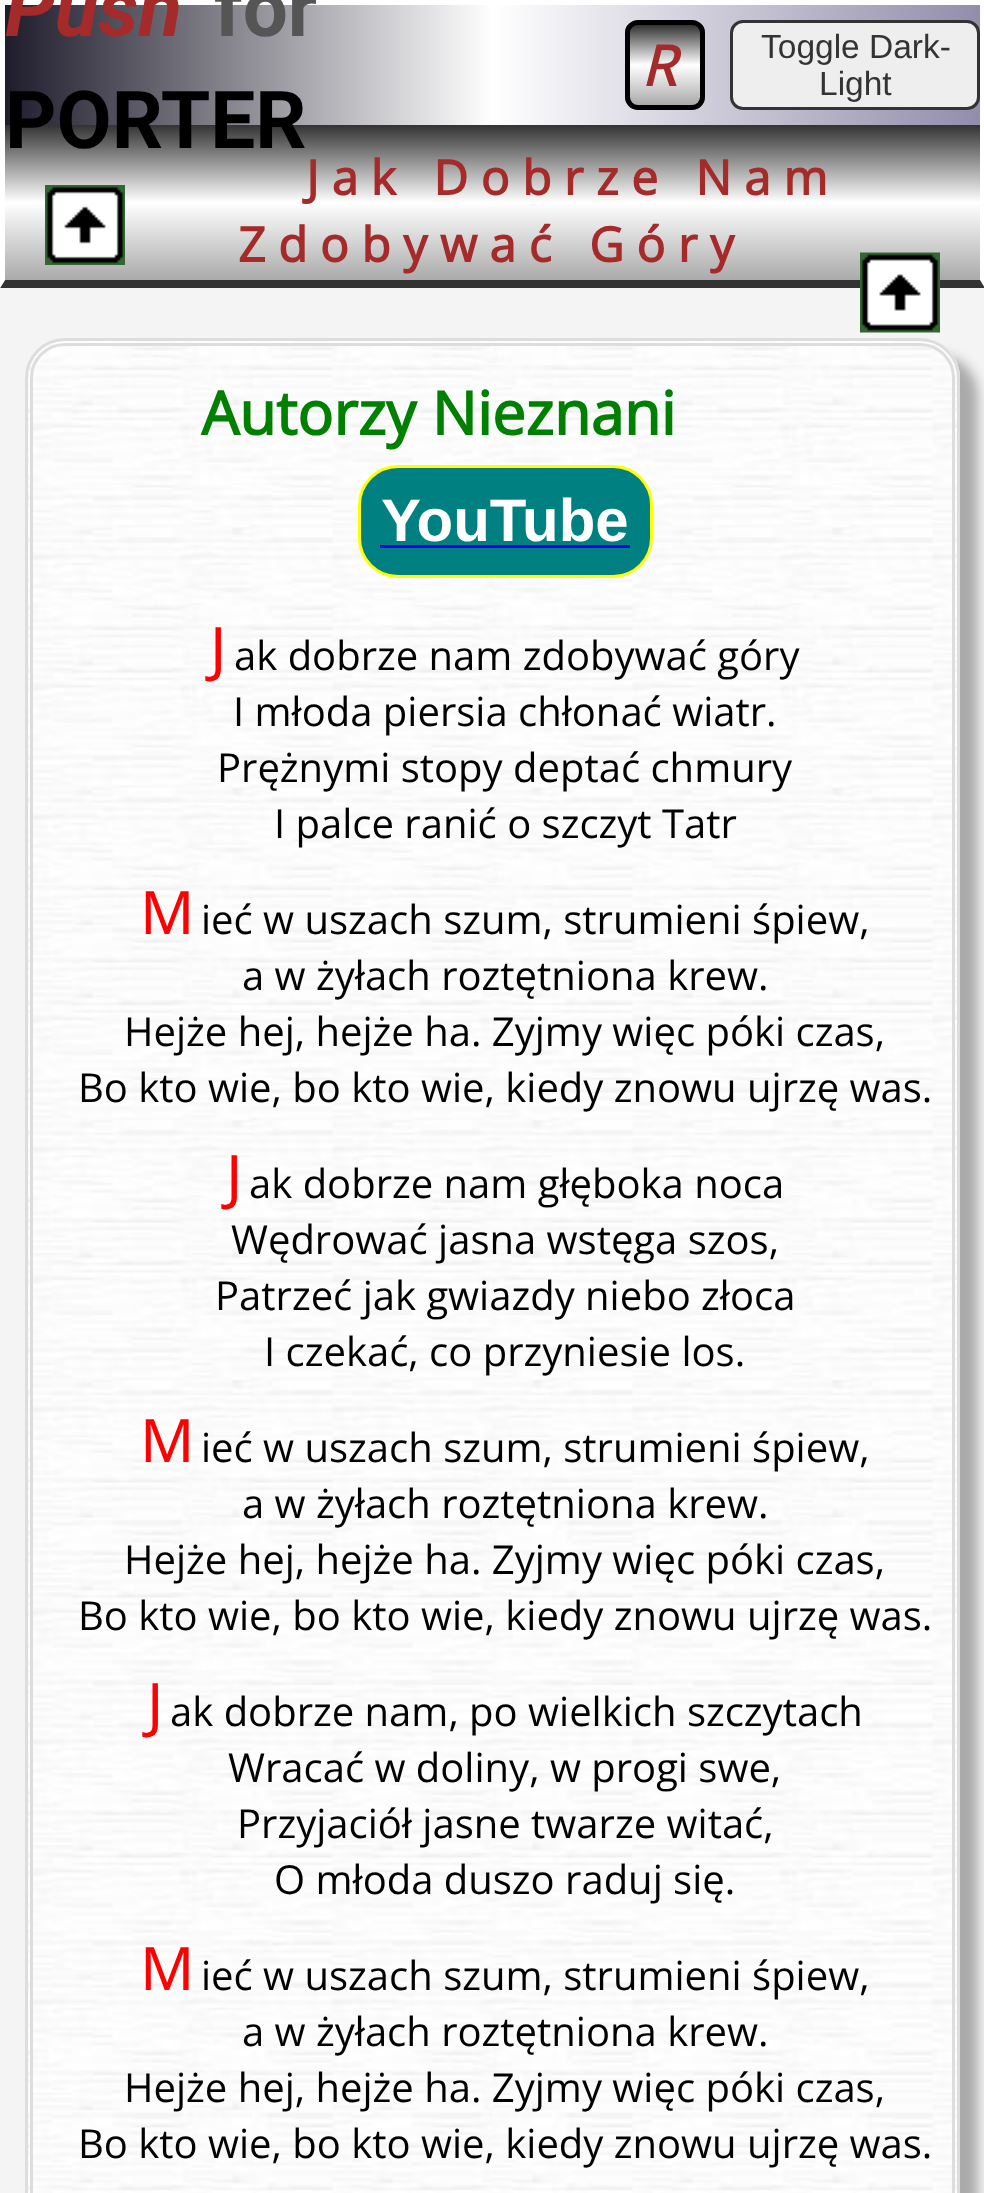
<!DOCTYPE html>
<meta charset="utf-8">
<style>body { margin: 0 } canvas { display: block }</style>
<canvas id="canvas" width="984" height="2193"></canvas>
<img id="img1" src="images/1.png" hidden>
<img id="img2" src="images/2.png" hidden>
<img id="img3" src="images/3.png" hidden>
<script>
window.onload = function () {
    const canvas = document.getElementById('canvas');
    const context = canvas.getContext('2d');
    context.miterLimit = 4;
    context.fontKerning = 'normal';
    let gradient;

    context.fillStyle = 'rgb(244, 244, 244)';
    context.fillRect(0, 0, 984, 2193);
    gradient = context.createLinearGradient(5, 65, 980, 65);
    gradient.addColorStop(0, 'rgb(31, 28, 44)');
    gradient.addColorStop(0.5, 'rgb(255, 255, 255)');
    gradient.addColorStop(1, 'rgb(146, 141, 171)');
    context.fillStyle = gradient;
    context.fillRect(5, 5, 975, 120);
    context.fillStyle = 'rgb(255, 255, 255)';
    context.fillRect(0, 0, 984, 5);
    context.fillRect(980, 0, 4, 125);
    context.fillRect(0, 0, 5, 125);
    context.save();
    context.beginPath();
    context.roundRect(625, 20, 80, 90, 13);
    context.clip();
    gradient = context.createLinearGradient(665, 25, 665, 105);
    gradient.addColorStop(0, 'rgb(51, 51, 51)');
    gradient.addColorStop(0.5, 'rgb(255, 255, 255)');
    gradient.addColorStop(1, 'rgb(170, 170, 170)');
    context.fillStyle = gradient;
    context.fillRect(625, 25, 80, 80);
    context.restore();
    context.beginPath();
    context.roundRect(627.5, 22.5, 75, 85, 10.5);
    context.strokeStyle = 'rgb(0, 0, 0)';
    context.lineWidth = 5;
    context.stroke();
    context.fillStyle = 'rgb(238, 238, 238)';
    context.beginPath();
    context.roundRect(731.5, 21.5, 247, 87, 11.5);
    context.fill();
    context.strokeStyle = 'rgb(51, 51, 51)';
    context.lineWidth = 3;
    context.stroke();
    gradient = context.createLinearGradient(493, 125, 493, 280);
    gradient.addColorStop(0, 'rgb(51, 51, 51)');
    gradient.addColorStop(0.5, 'rgb(255, 255, 255)');
    gradient.addColorStop(1, 'rgb(170, 170, 170)');
    context.fillStyle = gradient;
    context.fillRect(5, 125, 975, 155);
    context.fillStyle = 'rgb(255, 255, 255)';
    context.beginPath();
    context.moveTo(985, 125);
    context.lineTo(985, 288);
    context.lineTo(980, 280);
    context.lineTo(980, 125);
    context.closePath();
    context.fill();
    context.fillStyle = 'rgb(51, 51, 51)';
    context.beginPath();
    context.moveTo(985, 288);
    context.lineTo(0, 288);
    context.lineTo(5, 280);
    context.lineTo(980, 280);
    context.closePath();
    context.fill();
    context.fillStyle = 'rgb(255, 255, 255)';
    context.beginPath();
    context.moveTo(0, 288);
    context.lineTo(0, 125);
    context.lineTo(5, 125);
    context.lineTo(5, 280);
    context.closePath();
    context.fill();
    context.drawImage(document.getElementById('img1'), 45, 185, 80, 80);
    context.drawImage(document.getElementById('img2'), 860, 252, 80, 81);
    context.fillStyle = 'rgb(170, 170, 170)';
    context.filter = 'blur(6px)';
    context.beginPath();
    context.roundRect(43, 355, 935, 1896, 40);
    context.fill();
    context.filter = 'none';
    context.drawImage(document.getElementById('img3'), 25, 338, 935, 1855);
    context.beginPath();
    context.roundRect(26.5, 339.5, 932, 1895, 38.5);
    context.strokeStyle = 'rgb(221, 221, 221)';
    context.stroke();
    context.beginPath();
    context.roundRect(31.5, 344.5, 922, 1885, 33.5);
    context.stroke();
    context.fillStyle = 'rgb(0, 128, 128)';
    context.beginPath();
    context.roundRect(359.5, 466.5, 292, 110, 38.5);
    context.fill();
    context.strokeStyle = 'rgb(255, 255, 0)';
    context.stroke();
    context.fillStyle = 'rgb(0, 0, 238)';
    context.fillRect(380, 545, 250, 3);
    context.font = 'italic bold 80px Roboto';
    context.fillStyle = 'rgb(165, 42, 42)';
    context.fillText('Push', 5, 36);
    context.font = 'bold 80px Roboto';
    context.fillStyle = 'rgb(85, 85, 85)';
    context.fillText('for', 214, 36);
    context.fillStyle = 'rgb(0, 0, 0)';
    context.fillText('PORTER', 5, 148);
    context.font = 'italic bold 56px Open Sans';
    context.fillStyle = 'rgb(165, 42, 42)';
    context.fillText('R', 641, 86);
    context.font = '33.5px Liberation Sans';
    context.fillStyle = 'rgb(51, 51, 51)';
    context.fillText('Toggle Dark-', 761, 58);
    context.fillText('Light', 819, 95);
    context.letterSpacing = '12.5px';
    context.font = 'bold 48px Open Sans';
    context.fillStyle = 'rgb(165, 42, 42)';
    context.fillText('Jak Dobrze Nam', 306, 195);
    context.fillText('Zdobywać Góry', 238, 262);
    context.letterSpacing = '0px';
    context.font = 'bold 60px Open Sans';
    context.fillStyle = 'rgb(0, 128, 0)';
    context.fillText('Autorzy Nieznani', 201, 435);
    context.font = 'bold 60px Liberation Sans';
    context.fillStyle = 'rgb(255, 255, 255)';
    context.fillText('YouTube', 381, 541);
    context.font = '60px Noto Sans';
    context.fillStyle = 'rgb(255, 0, 0)';
    context.fillText('J', 210, 670);
    context.font = '40px Open Sans';
    context.fillStyle = 'rgb(0, 0, 0)';
    context.fillText('ak dobrze nam zdobywać góry', 234, 670);
    context.fillText('I młoda piersia chłonać wiatr.', 233, 726);
    context.fillText('Prężnymi stopy deptać chmury', 217, 782);
    context.fillText('I palce ranić o szczyt Tatr', 274, 838);
    context.font = '60px Noto Sans';
    context.fillStyle = 'rgb(255, 0, 0)';
    context.fillText('M', 140, 934);
    context.font = '40px Open Sans';
    context.fillStyle = 'rgb(0, 0, 0)';
    context.fillText('ieć w uszach szum, strumieni śpiew,', 201, 934);
    context.fillText('a w żyłach roztętniona krew.', 242, 990);
    context.fillText('Hejże hej, hejże ha. Zyjmy więc póki czas,', 124, 1046);
    context.fillText('Bo kto wie, bo kto wie, kiedy znowu ujrzę was.', 78, 1102);
    context.font = '60px Noto Sans';
    context.fillStyle = 'rgb(255, 0, 0)';
    context.fillText('J', 226, 1198);
    context.font = '40px Open Sans';
    context.fillStyle = 'rgb(0, 0, 0)';
    context.fillText('ak dobrze nam głęboka noca', 249, 1198);
    context.fillText('Wędrować jasna wstęga szos,', 231, 1254);
    context.fillText('Patrzeć jak gwiazdy niebo złoca', 215, 1310);
    context.fillText('I czekać, co przyniesie los.', 264, 1366);
    context.font = '60px Noto Sans';
    context.fillStyle = 'rgb(255, 0, 0)';
    context.fillText('M', 140, 1462);
    context.font = '40px Open Sans';
    context.fillStyle = 'rgb(0, 0, 0)';
    context.fillText('ieć w uszach szum, strumieni śpiew,', 201, 1462);
    context.fillText('a w żyłach roztętniona krew.', 242, 1518);
    context.fillText('Hejże hej, hejże ha. Zyjmy więc póki czas,', 124, 1574);
    context.fillText('Bo kto wie, bo kto wie, kiedy znowu ujrzę was.', 78, 1630);
    context.font = '60px Noto Sans';
    context.fillStyle = 'rgb(255, 0, 0)';
    context.fillText('J', 147, 1726);
    context.font = '40px Open Sans';
    context.fillStyle = 'rgb(0, 0, 0)';
    context.fillText('ak dobrze nam, po wielkich szczytach', 170, 1726);
    context.fillText('Wracać w doliny, w progi swe,', 228, 1782);
    context.fillText('Przyjaciół jasne twarze witać,', 237, 1838);
    context.fillText('O młoda duszo raduj się.', 274, 1894);
    context.font = '60px Noto Sans';
    context.fillStyle = 'rgb(255, 0, 0)';
    context.fillText('M', 140, 1990);
    context.font = '40px Open Sans';
    context.fillStyle = 'rgb(0, 0, 0)';
    context.fillText('ieć w uszach szum, strumieni śpiew,', 201, 1990);
    context.fillText('a w żyłach roztętniona krew.', 242, 2046);
    context.fillText('Hejże hej, hejże ha. Zyjmy więc póki czas,', 124, 2102);
    context.fillText('Bo kto wie, bo kto wie, kiedy znowu ujrzę was.', 78, 2158);
};
</script>
